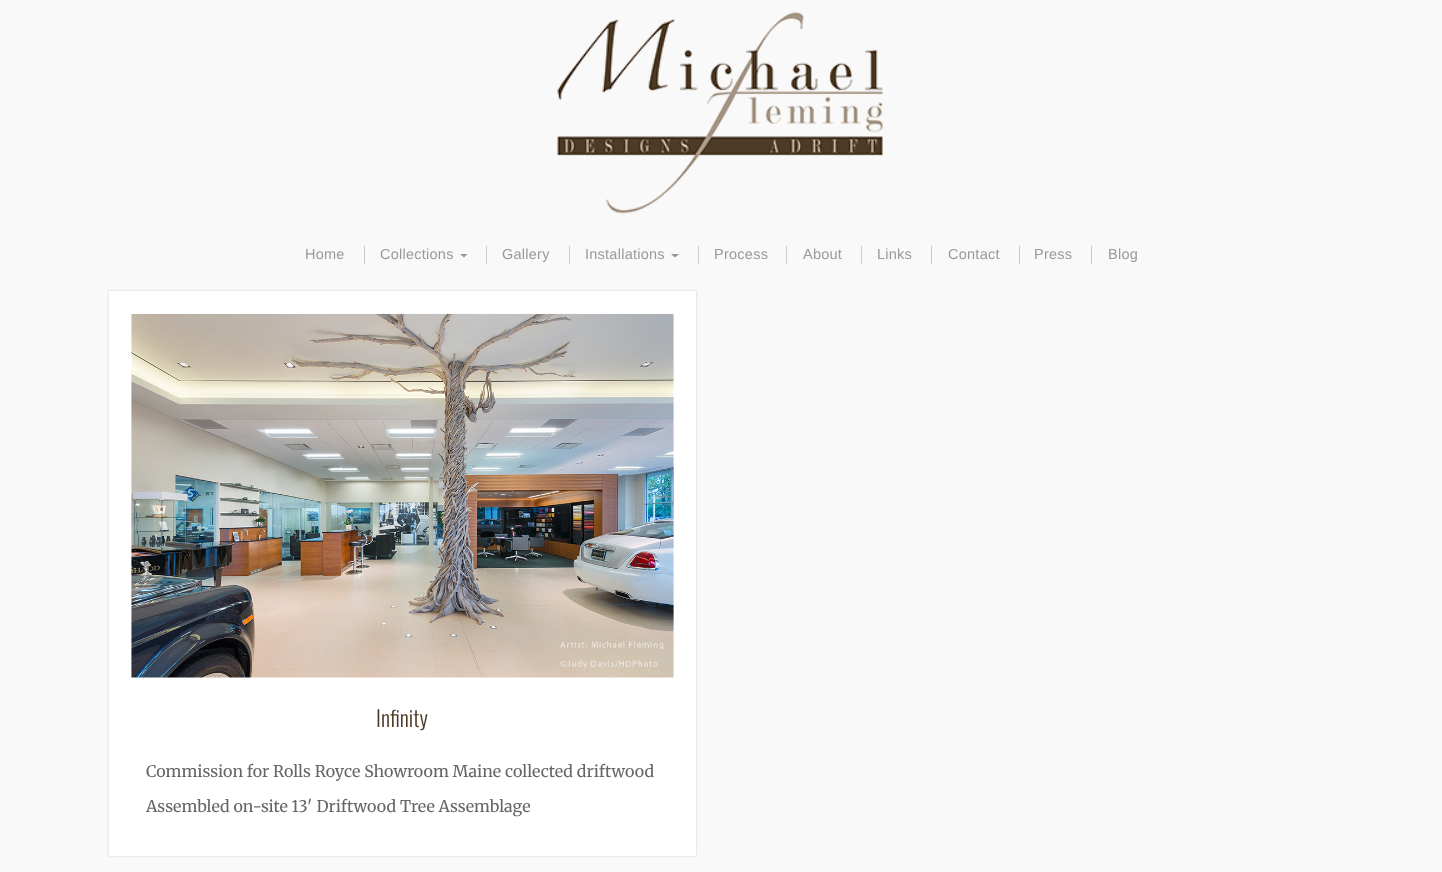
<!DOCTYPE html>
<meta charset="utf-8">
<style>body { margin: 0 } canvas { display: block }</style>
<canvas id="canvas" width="1442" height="872"></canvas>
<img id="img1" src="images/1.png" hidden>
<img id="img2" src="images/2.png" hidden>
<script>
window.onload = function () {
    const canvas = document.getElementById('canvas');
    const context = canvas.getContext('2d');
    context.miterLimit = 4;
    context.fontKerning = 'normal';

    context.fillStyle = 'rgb(249, 249, 249)';
    context.fillRect(0, 0, 1442, 872);
    context.drawImage(document.getElementById('img1'), 557, 12, 326, 202);
    context.fillStyle = 'rgb(204, 204, 204)';
    context.fillRect(364, 246, 1, 18);
    context.fillStyle = 'rgb(149, 149, 149)';
    context.beginPath();
    context.moveTo(460, 254);
    context.lineTo(467.5, 254);
    context.lineTo(464, 257.5);
    context.closePath();
    context.fill();
    context.fillStyle = 'rgb(204, 204, 204)';
    context.fillRect(486, 246, 1, 18);
    context.fillRect(569, 246, 1, 18);
    context.fillStyle = 'rgb(149, 149, 149)';
    context.beginPath();
    context.moveTo(671, 254);
    context.lineTo(679, 254);
    context.lineTo(675, 257.5);
    context.closePath();
    context.fill();
    context.fillStyle = 'rgb(204, 204, 204)';
    context.fillRect(698, 246, 1, 18);
    context.fillRect(786, 246, 1, 18);
    context.fillRect(861, 246, 1, 18);
    context.fillRect(931, 246, 1, 18);
    context.fillRect(1019, 246, 1, 18);
    context.fillRect(1091, 246, 1, 18);
    context.filter = 'blur(1px)';
    context.beginPath();
    context.rect(109, 291, 587, 565);
    context.fill();
    context.filter = 'none';
    context.fillStyle = 'rgb(255, 255, 255)';
    context.fillRect(109, 291, 587, 565);
    context.drawImage(document.getElementById('img2'), 131, 313, 543, 365);
    context.letterSpacing = '0.25px';
    context.font = '14.5px Liberation Sans';
    context.fillStyle = 'rgb(153, 153, 153)';
    context.fillText('Home', 305, 259);
    context.fillText('Collections', 380, 259);
    context.fillText('Gallery', 502, 259);
    context.fillText('Installations', 585, 259);
    context.fillText('Process', 714, 259);
    context.fillText('About', 803, 259);
    context.fillText('Links', 877, 259);
    context.fillText('Contact', 948, 259);
    context.fillText('Press', 1034, 259);
    context.fillText('Blog', 1108, 259);
    context.letterSpacing = '0px';
    context.font = '300 22px Oswald';
    context.fillStyle = 'rgb(77, 59, 39)';
    context.fillText('Infinity', 376, 727);
    context.font = '16px Merriweather';
    context.fillStyle = 'rgb(102, 102, 102)';
    context.fillText('Commission for Rolls Royce Showroom Maine collected driftwood', 146, 777);
    context.fillText('Assembled on-site 13′ Driftwood Tree Assemblage', 146, 812);
};
</script>
